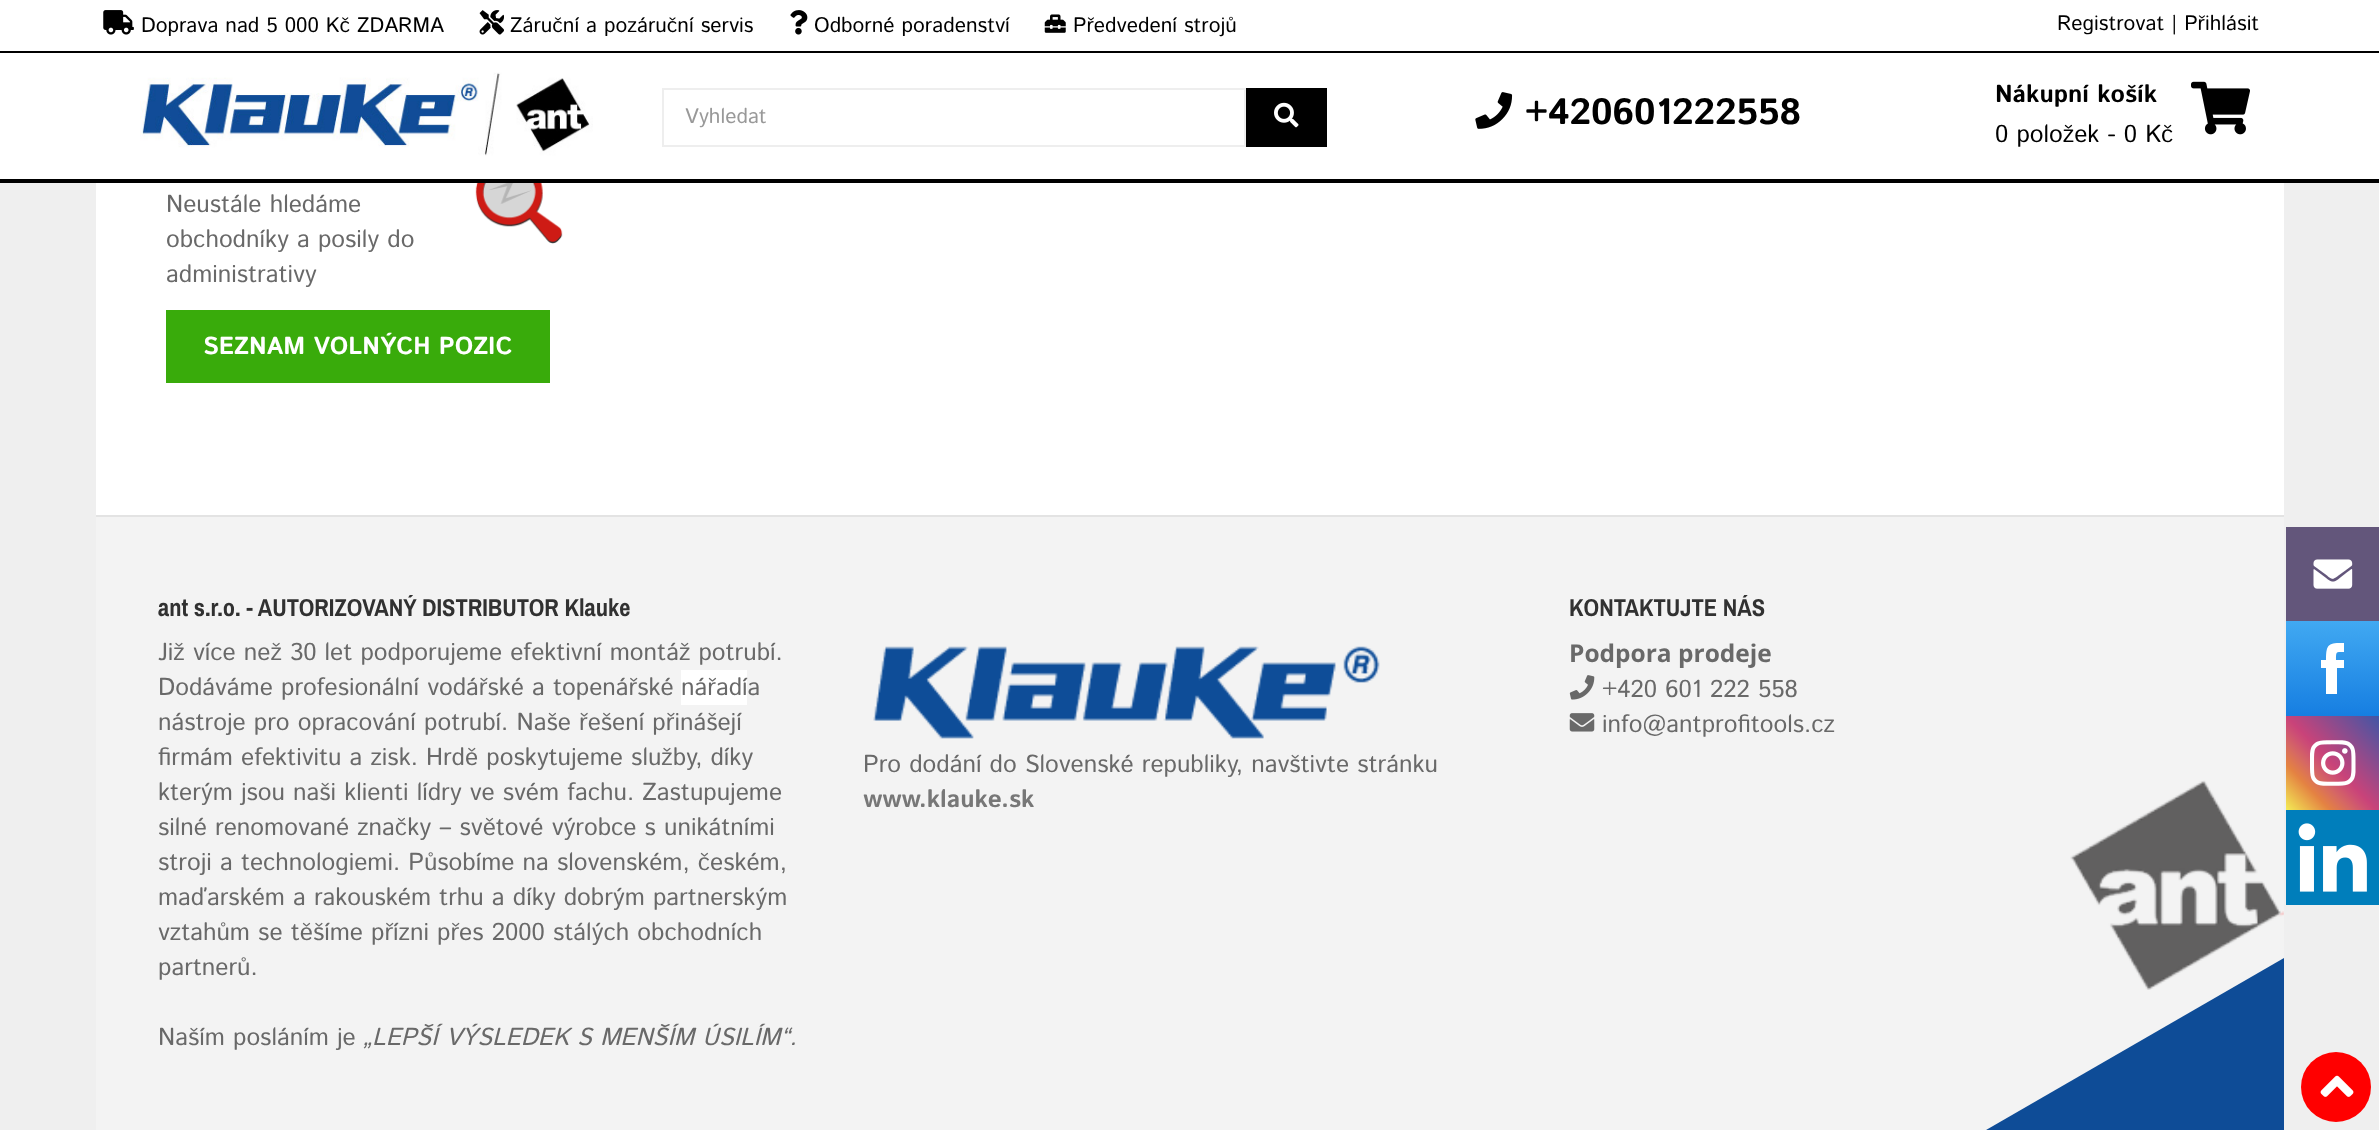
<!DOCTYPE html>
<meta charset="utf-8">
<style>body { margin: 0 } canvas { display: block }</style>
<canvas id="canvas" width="2379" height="1130"></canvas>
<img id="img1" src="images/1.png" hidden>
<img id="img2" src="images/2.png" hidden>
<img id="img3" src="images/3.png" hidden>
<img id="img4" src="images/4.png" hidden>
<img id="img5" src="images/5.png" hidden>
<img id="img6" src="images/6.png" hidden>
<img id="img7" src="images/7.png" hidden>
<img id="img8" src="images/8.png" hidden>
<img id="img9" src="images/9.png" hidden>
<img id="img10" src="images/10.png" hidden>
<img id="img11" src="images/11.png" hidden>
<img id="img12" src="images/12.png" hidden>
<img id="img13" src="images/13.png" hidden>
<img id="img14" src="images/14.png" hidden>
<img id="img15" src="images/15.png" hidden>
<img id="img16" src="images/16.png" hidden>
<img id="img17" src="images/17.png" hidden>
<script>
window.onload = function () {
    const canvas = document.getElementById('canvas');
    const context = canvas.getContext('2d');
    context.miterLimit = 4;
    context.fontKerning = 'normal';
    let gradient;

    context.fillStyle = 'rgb(239, 239, 239)';
    context.fillRect(0, 0, 2379, 1130);
    context.fillStyle = 'rgb(255, 255, 255)';
    context.fillRect(0, 0, 2379, 51);
    context.fillStyle = 'rgb(0, 0, 0)';
    context.fillRect(0, 51, 2379, 2);
    context.drawImage(document.getElementById('img1'), 103, 10, 31, 25);
    context.drawImage(document.getElementById('img2'), 479, 10, 25, 25);
    context.drawImage(document.getElementById('img3'), 790, 10, 18, 25);
    context.drawImage(document.getElementById('img4'), 1044, 14, 22, 19);
    context.fillStyle = 'rgb(255, 255, 255)';
    context.fillRect(0, 53, 2379, 126);
    context.fillStyle = 'rgb(0, 0, 0)';
    context.fillRect(0, 179, 2379, 4);
    context.drawImage(document.getElementById('img5'), 140, 72, 453, 84);
    context.strokeStyle = 'rgb(238, 238, 238)';
    context.lineWidth = 2;
    context.strokeRect(663, 89, 582, 57);
    context.fillRect(1246, 88, 81, 59);
    context.drawImage(document.getElementById('img6'), 1274, 102, 25, 26);
    context.drawImage(document.getElementById('img7'), 1475, 92, 38, 37);
    context.drawImage(document.getElementById('img8'), 2191, 81, 59, 54);
    context.fillStyle = 'rgb(255, 255, 255)';
    context.fillRect(96, 183, 2188, 332);
    context.fillStyle = 'rgb(57, 171, 11)';
    context.fillRect(166, 310, 384, 73);
    context.drawImage(document.getElementById('img9'), 475, 183, 88, 61);
    context.fillStyle = 'rgb(243, 243, 243)';
    context.fillRect(96, 517, 2188, 613);
    context.drawImage(document.getElementById('img10'), 2070, 780, 214, 210);
    context.fillStyle = 'rgb(227, 227, 227)';
    context.fillRect(96, 515, 2188, 2);
    context.fillStyle = 'rgb(255, 255, 255)';
    context.fillRect(681, 670, 66, 35);
    context.drawImage(document.getElementById('img11'), 1569, 675, 26, 25);
    context.drawImage(document.getElementById('img12'), 1569, 713, 26, 19);
    context.drawImage(document.getElementById('img13'), 873, 646, 507, 93);
    context.save();
    context.beginPath();
    context.rect(96, 516, 2188, 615);
    context.clip();
    context.fillStyle = 'rgb(14, 76, 151)';
    context.beginPath();
    context.moveTo(2310, 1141);
    context.lineTo(1967, 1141);
    context.lineTo(2310, 943);
    context.closePath();
    context.fill();
    context.restore();
    context.drawImage(document.getElementById('img14'), 2286, 527, 93, 94);
    gradient = context.createLinearGradient(2333, 716, 2333, 621);
    gradient.addColorStop(0, 'rgb(22, 126, 225)');
    gradient.addColorStop(1, 'rgb(65, 169, 242)');
    context.fillStyle = gradient;
    context.fillRect(2286, 621, 93, 95);
    context.fillStyle = 'rgb(255, 255, 255)';
    context.beginPath();
    context.moveTo(2326, 694);
    context.lineTo(2337, 694);
    context.lineTo(2337, 668);
    context.lineTo(2344, 668);
    context.lineTo(2344, 660);
    context.lineTo(2336, 660);
    context.bezierCurveTo(2336, 651, 2336, 652, 2344, 652);
    context.lineTo(2344, 643);
    context.bezierCurveTo(2329, 643, 2326, 643, 2326, 660);
    context.lineTo(2321, 660);
    context.lineTo(2321, 668);
    context.lineTo(2326, 668);
    context.closePath();
    context.fill();
    context.drawImage(document.getElementById('img15'), 2286, 716, 93, 94);
    context.drawImage(document.getElementById('img16'), 2286, 810, 93, 95);
    context.fillStyle = 'rgb(255, 0, 0)';
    context.beginPath();
    context.arc(2336, 1087, 35, 0, 2 * Math.PI);
    context.fill();
    context.drawImage(document.getElementById('img17'), 2320, 1075, 34, 22);
    context.font = '21px Istok Web';
    context.fillStyle = 'rgb(0, 0, 0)';
    context.fillText('Doprava nad 5 000 Kč ZDARMA', 141, 32);
    context.fillText('Záruční a pozáruční servis', 510, 32);
    context.fillText('Odborné poradenství', 814, 32);
    context.fillText('Předvedení strojů', 1073, 32);
    context.fillText('Registrovat | Přihlásit', 2057, 30);
    context.fillStyle = 'rgb(153, 153, 153)';
    context.fillText('Vyhledat', 685, 123);
    context.font = 'bold 36.75px Istok Web';
    context.fillStyle = 'rgb(0, 0, 0)';
    context.fillText('+420601222558', 1525, 124);
    context.font = 'bold 24.5px Istok Web';
    context.fillText('Nákupní košík', 1995, 102);
    context.font = '24.5px Istok Web';
    context.fillText('0 položek - 0 Kč', 1995, 142);
    context.fillStyle = 'rgb(105, 105, 105)';
    context.fillText('Neustále hledáme', 166, 212);
    context.fillText('obchodníky a posily do', 166, 247);
    context.fillText('administrativy', 166, 282);
    context.font = 'bold 24.5px Istok Web';
    context.fillStyle = 'rgb(255, 255, 255)';
    context.fillText('SEZNAM VOLNÝCH POZIC', 203, 354);
    context.font = 'bold 24.5px Archivo Narrow';
    context.fillStyle = 'rgb(49, 49, 49)';
    context.fillText('ant s.r.o. - AUTORIZOVANÝ DISTRIBUTOR Klauke', 158, 616);
    context.font = '24.5px Istok Web';
    context.fillStyle = 'rgb(105, 105, 105)';
    context.fillText('Již více než 30 let podporujeme efektivní montáž potrubí.', 158, 660);
    context.fillText('Dodáváme profesionální vodářské a topenářské', 158, 695);
    context.fillText('nářadía', 681, 695);
    context.fillText('nástroje pro opracování potrubí. Naše řešení přinášejí', 158, 730);
    context.fillText('firmám efektivitu a zisk. Hrdě poskytujeme služby, díky', 158, 765);
    context.fillText('kterým jsou naši klienti lídry ve svém fachu. Zastupujeme', 158, 800);
    context.fillText('silné renomované značky – světové výrobce s unikátními', 158, 835);
    context.fillText('stroji a technologiemi. Působíme na slovenském, českém,', 158, 870);
    context.fillText('maďarském a rakouském trhu a díky dobrým partnerským', 158, 905);
    context.fillText('vztahům se těšíme přízni přes 2000 stálých obchodních', 158, 940);
    context.fillText('partnerů.', 158, 975);
    context.fillText('Naším posláním je', 158, 1045);
    context.font = 'italic 24.5px Istok Web';
    context.fillText('„LEPŠÍ VÝSLEDEK S MENŠÍM ÚSILÍM“.', 363, 1045);
    context.font = 'bold 24.5px Archivo Narrow';
    context.fillStyle = 'rgb(49, 49, 49)';
    context.fillText('KONTAKTUJTE NÁS', 1569, 616);
    context.font = 'bold 24.5px Open Sans';
    context.fillStyle = 'rgb(105, 105, 105)';
    context.fillText('Podpora prodeje', 1569, 662);
    context.font = '24.5px Istok Web';
    context.fillText('+420 601 222 558', 1602, 697);
    context.fillText('info@antprofitools.cz', 1602, 732);
    context.fillText('Pro dodání do Slovenské republiky, navštivte stránku', 863, 772);
    context.font = 'bold 24.5px Istok Web';
    context.fillStyle = 'rgb(119, 119, 119)';
    context.fillText('www.klauke.sk', 863, 807);
};
</script>
